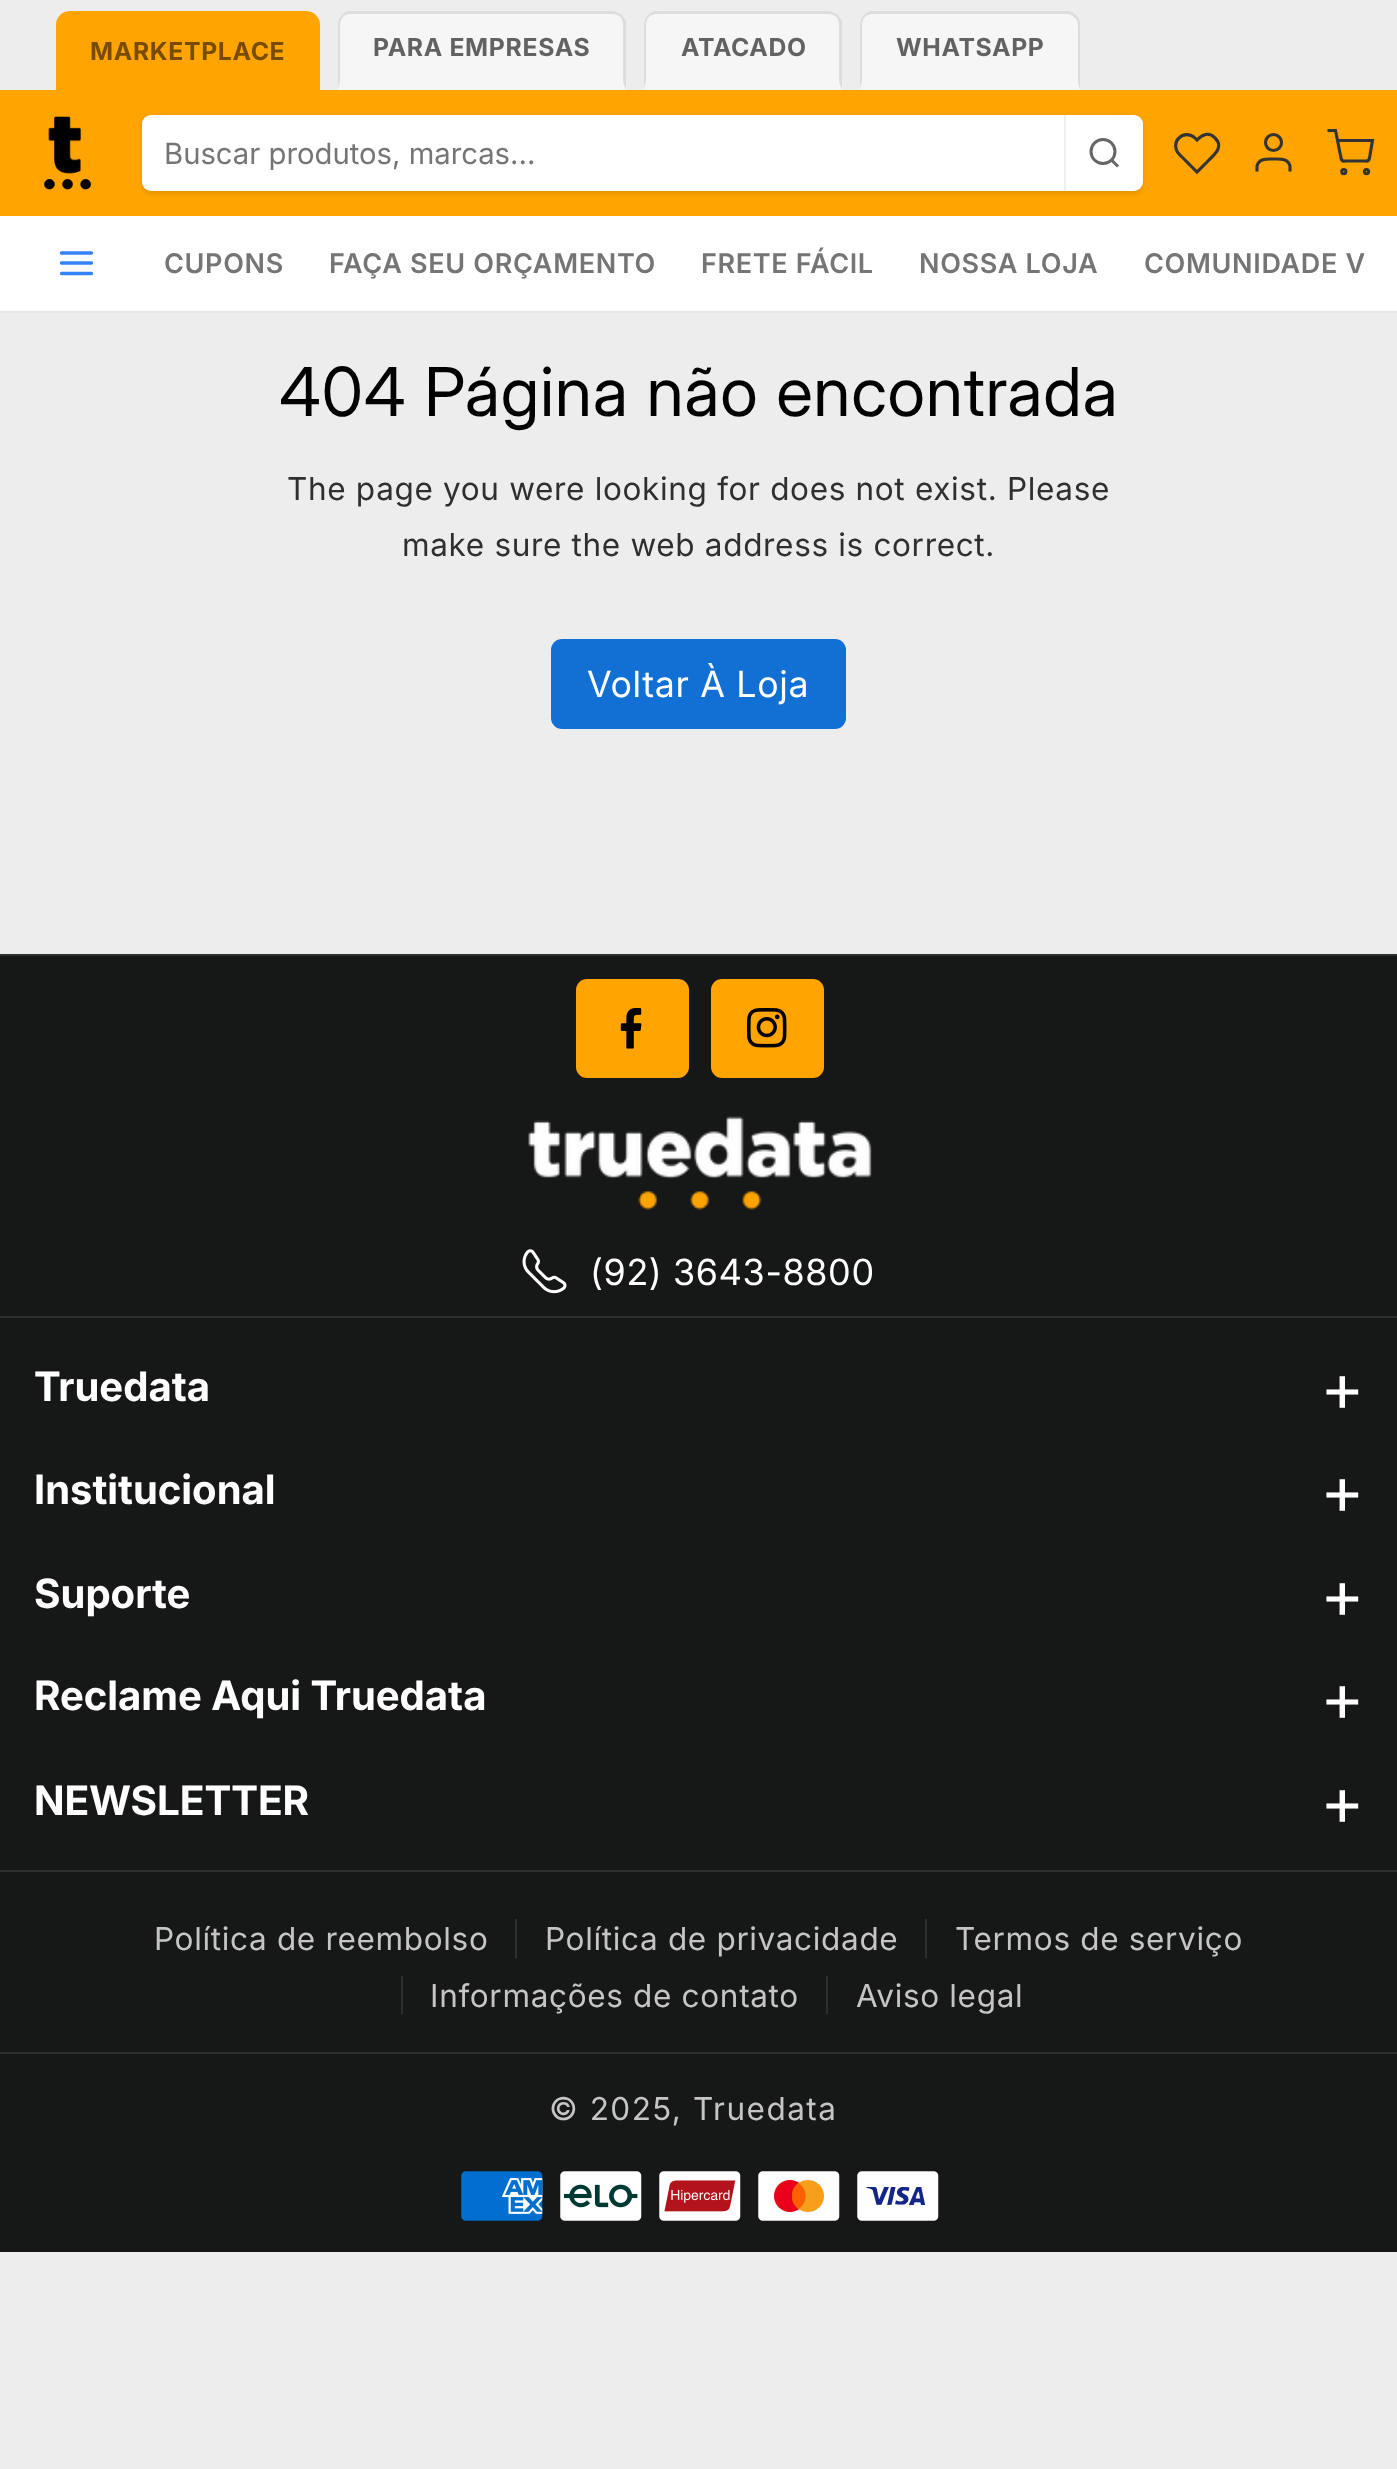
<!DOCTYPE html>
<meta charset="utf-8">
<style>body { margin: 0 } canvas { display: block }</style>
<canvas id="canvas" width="1397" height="2469"></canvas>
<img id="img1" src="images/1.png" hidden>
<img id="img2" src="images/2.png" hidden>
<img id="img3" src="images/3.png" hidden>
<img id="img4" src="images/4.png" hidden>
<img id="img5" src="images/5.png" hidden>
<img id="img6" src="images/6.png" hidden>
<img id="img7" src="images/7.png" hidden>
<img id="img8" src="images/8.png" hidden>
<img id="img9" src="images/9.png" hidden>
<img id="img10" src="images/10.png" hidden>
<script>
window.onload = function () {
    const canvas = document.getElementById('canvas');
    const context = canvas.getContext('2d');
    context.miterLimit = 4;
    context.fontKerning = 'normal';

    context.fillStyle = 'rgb(237, 237, 237)';
    context.fillRect(0, 0, 1397, 2469);
    context.fillStyle = 'rgb(255, 164, 0)';
    context.beginPath();
    context.roundRect(56, 11, 264, 79, [14, 14, 0, 0]);
    context.fill();
    context.fillStyle = 'rgb(246, 246, 246)';
    context.beginPath();
    context.roundRect(338, 11, 288, 79, [14, 14, 0, 0]);
    context.fill();
    context.fillStyle = 'rgba(0, 0, 0, 0.1)';
    context.beginPath();
    context.moveTo(351, 14);
    context.bezierCurveTo(348, 14, 345, 15, 343, 17);
    context.lineTo(342, 15);
    context.bezierCurveTo(343, 13, 346, 12, 349, 11);
    context.lineTo(614, 11);
    context.bezierCurveTo(617, 12, 620, 13, 622, 15);
    context.lineTo(620, 17);
    context.bezierCurveTo(618, 15, 615, 14, 612, 14);
    context.closePath();
    context.fill();
    context.beginPath();
    context.moveTo(626, 21);
    context.lineTo(626, 90);
    context.lineTo(623, 82);
    context.lineTo(623, 25);
    context.bezierCurveTo(623, 22, 622, 19, 620, 17);
    context.lineTo(622, 15);
    context.bezierCurveTo(623, 17, 625, 19, 626, 21);
    context.closePath();
    context.fill();
    context.beginPath();
    context.moveTo(338, 88);
    context.lineTo(338, 25);
    context.bezierCurveTo(338, 21, 339, 18, 342, 15);
    context.lineTo(343, 17);
    context.bezierCurveTo(341, 19, 340, 22, 340, 25);
    context.lineTo(340, 82);
    context.closePath();
    context.fill();
    context.fillStyle = 'rgb(246, 246, 246)';
    context.beginPath();
    context.roundRect(644, 11, 198, 79, [14, 14, 0, 0]);
    context.fill();
    context.fillStyle = 'rgba(0, 0, 0, 0.1)';
    context.beginPath();
    context.moveTo(657, 14);
    context.bezierCurveTo(654, 14, 651, 15, 649, 17);
    context.lineTo(648, 15);
    context.bezierCurveTo(649, 13, 652, 12, 655, 11);
    context.lineTo(830, 11);
    context.bezierCurveTo(833, 12, 836, 13, 838, 15);
    context.lineTo(836, 17);
    context.bezierCurveTo(834, 15, 831, 14, 828, 14);
    context.closePath();
    context.fill();
    context.beginPath();
    context.moveTo(842, 21);
    context.lineTo(842, 90);
    context.lineTo(839, 82);
    context.lineTo(839, 25);
    context.bezierCurveTo(839, 22, 838, 19, 836, 17);
    context.lineTo(838, 15);
    context.bezierCurveTo(839, 17, 841, 19, 842, 21);
    context.closePath();
    context.fill();
    context.beginPath();
    context.moveTo(644, 88);
    context.lineTo(644, 25);
    context.bezierCurveTo(644, 21, 645, 18, 648, 15);
    context.lineTo(649, 17);
    context.bezierCurveTo(647, 19, 646, 22, 646, 25);
    context.lineTo(646, 82);
    context.closePath();
    context.fill();
    context.fillStyle = 'rgb(246, 246, 246)';
    context.beginPath();
    context.roundRect(860, 11, 220, 79, [14, 14, 0, 0]);
    context.fill();
    context.fillStyle = 'rgba(0, 0, 0, 0.1)';
    context.beginPath();
    context.moveTo(873, 14);
    context.bezierCurveTo(870, 14, 867, 15, 865, 17);
    context.lineTo(864, 15);
    context.bezierCurveTo(865, 13, 868, 12, 871, 11);
    context.lineTo(1069, 11);
    context.bezierCurveTo(1072, 12, 1074, 13, 1076, 15);
    context.lineTo(1074, 17);
    context.bezierCurveTo(1072, 15, 1069, 14, 1066, 14);
    context.closePath();
    context.fill();
    context.beginPath();
    context.moveTo(1080, 90);
    context.lineTo(1080, 25);
    context.bezierCurveTo(1080, 21, 1079, 18, 1076, 15);
    context.lineTo(1074, 17);
    context.bezierCurveTo(1077, 19, 1078, 22, 1078, 25);
    context.lineTo(1078, 83);
    context.closePath();
    context.fill();
    context.beginPath();
    context.moveTo(860, 88);
    context.lineTo(860, 25);
    context.bezierCurveTo(860, 21, 861, 18, 864, 15);
    context.lineTo(865, 17);
    context.bezierCurveTo(863, 19, 862, 22, 862, 25);
    context.lineTo(862, 82);
    context.closePath();
    context.fill();
    context.fillStyle = 'rgb(255, 164, 0)';
    context.fillRect(0, 90, 1397, 126);
    context.drawImage(document.getElementById('img1'), 44, 116, 48, 74);
    context.fillStyle = 'rgba(0, 0, 0, 0.1)';
    context.filter = 'blur(2px)';
    context.beginPath();
    context.roundRect(142, 117, 1001, 77, 9);
    context.fill();
    context.filter = 'none';
    context.fillStyle = 'rgb(255, 255, 255)';
    context.beginPath();
    context.roundRect(142, 115, 1001, 76, 9);
    context.fill();
    context.fillStyle = 'rgb(238, 238, 238)';
    context.fillRect(1064, 115, 2, 76);
    context.beginPath();
    context.arc(1103, 151.5, 12, 0, 2 * Math.PI);
    context.strokeStyle = 'rgb(102, 102, 102)';
    context.lineWidth = 3;
    context.stroke();
    context.beginPath();
    context.moveTo(1118, 166.5);
    context.lineTo(1111.5, 160);
    context.stroke();
    context.beginPath();
    context.moveTo(1215, 138);
    context.bezierCurveTo(1209, 131.5, 1202, 134.5, 1197, 140);
    context.lineTo(1195, 138);
    context.bezierCurveTo(1190.5, 133.5, 1183, 133.5, 1179, 138);
    context.bezierCurveTo(1174.5, 142, 1174.5, 149.5, 1179, 154);
    context.lineTo(1197, 172);
    context.lineTo(1207.5, 161.5);
    context.bezierCurveTo(1214, 155, 1224.5, 147, 1215, 138);
    context.closePath();
    context.strokeStyle = 'rgb(51, 51, 51)';
    context.lineWidth = 3.1;
    context.stroke();
    context.beginPath();
    context.moveTo(1290, 171.5);
    context.lineTo(1290, 166);
    context.bezierCurveTo(1288, 158, 1279.5, 159, 1273.5, 159);
    context.bezierCurveTo(1267.5, 159, 1259, 158, 1257, 166);
    context.lineTo(1257, 171.5);
    context.stroke();
    context.beginPath();
    context.arc(1273.5, 142.5, 8, 0, 2 * Math.PI);
    context.stroke();
    context.beginPath();
    context.arc(1343.8, 171.6, 2.1, 0, 2 * Math.PI);
    context.stroke();
    context.beginPath();
    context.arc(1366.5, 171.6, 2.1, 0, 2 * Math.PI);
    context.stroke();
    context.beginPath();
    context.moveTo(1327.5, 130.5);
    context.lineTo(1335.5, 130.5);
    context.lineTo(1341, 158);
    context.bezierCurveTo(1341.5, 160, 1343, 161.5, 1345, 161);
    context.lineTo(1365.5, 161);
    context.bezierCurveTo(1367.5, 161.5, 1369, 160, 1369.5, 158);
    context.lineTo(1372.5, 140.5);
    context.lineTo(1337.5, 140.5);
    context.stroke();
    context.fillStyle = 'rgb(255, 255, 255)';
    context.fillRect(0, 216, 1397, 95);
    context.fillStyle = 'rgb(229, 231, 235)';
    context.fillRect(0, 311, 1397, 2);
    context.beginPath();
    context.moveTo(61.5, 263);
    context.lineTo(91.5, 263);
    context.moveTo(61.5, 253);
    context.lineTo(91.5, 253);
    context.moveTo(61.5, 273.5);
    context.lineTo(91.5, 273.5);
    context.strokeStyle = 'rgb(52, 131, 250)';
    context.lineWidth = 3.4;
    context.lineCap = 'round';
    context.lineJoin = 'round';
    context.stroke();
    context.fillStyle = 'rgb(18, 111, 211)';
    context.beginPath();
    context.roundRect(551, 639, 295, 90, 11);
    context.fill();
    context.fillStyle = 'rgb(22, 23, 23)';
    context.fillRect(0, 956, 1397, 1296);
    context.fillStyle = 'rgb(45, 46, 46)';
    context.fillRect(0, 954, 1397, 2);
    context.fillRect(0, 1316, 1397, 2);
    context.fillStyle = 'rgb(255, 164, 0)';
    context.beginPath();
    context.roundRect(576, 979, 113, 99, 11);
    context.fill();
    context.drawImage(document.getElementById('img2'), 620, 1008, 22, 41);
    context.beginPath();
    context.roundRect(711, 979, 113, 99, 11);
    context.fill();
    context.drawImage(document.getElementById('img3'), 747, 1008, 40, 40);
    context.drawImage(document.getElementById('img4'), 528, 1116, 344, 94);
    context.drawImage(document.getElementById('img5'), 522, 1249, 45, 45);
    context.fillStyle = 'rgb(45, 46, 46)';
    context.fillRect(0, 1870, 1397, 2);
    context.fillRect(515, 1919, 2, 39);
    context.fillRect(925, 1919, 2, 39);
    context.fillRect(401, 1976, 2, 38);
    context.fillRect(826, 1976, 2, 38);
    context.fillRect(0, 2052, 1397, 2);
    context.drawImage(document.getElementById('img6'), 461, 2171, 82, 50);
    context.drawImage(document.getElementById('img7'), 560, 2171, 82, 50);
    context.drawImage(document.getElementById('img8'), 659, 2171, 82, 50);
    context.drawImage(document.getElementById('img9'), 758, 2171, 82, 50);
    context.drawImage(document.getElementById('img10'), 857, 2171, 82, 50);
    context.letterSpacing = '0.67px';
    context.font = 'bold 24.75px "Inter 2"';
    context.fillStyle = 'rgb(119, 76, 0)';
    context.fillText('MARKETPLACE', 90, 60);
    context.fillStyle = 'rgb(98, 98, 98)';
    context.fillText('PARA EMPRESAS', 373, 56);
    context.fillText('ATACADO', 681, 56);
    context.fillText('WHATSAPP', 896, 56);
    context.letterSpacing = '0px';
    context.font = '29.25px "Inter 2"';
    context.fillStyle = 'rgb(117, 117, 117)';
    context.fillText('Buscar produtos, marcas...', 164, 164);
    context.letterSpacing = '0.67px';
    context.font = '600 27px Inter';
    context.fillText('CUPONS', 164, 273);
    context.fillText('FAÇA SEU ORÇAMENTO', 329, 273);
    context.fillText('FRETE FÁCIL', 701, 273);
    context.fillText('NOSSA LOJA', 919, 273);
    context.fillText('COMUNIDADE V', 1144, 273);
    context.font = '67.5px Inter';
    context.fillStyle = 'rgb(0, 0, 0)';
    context.fillText('404 Página não encontrada', 279, 416);
    context.font = '31.5px "Inter 2"';
    context.fillStyle = 'rgb(47, 47, 47)';
    context.fillText('The page you were looking for does not exist. Please', 287, 500);
    context.fillText('make sure the web address is correct.', 402, 556);
    context.font = '36px "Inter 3"';
    context.fillStyle = 'rgb(255, 255, 255)';
    context.fillText('Voltar À Loja', 587, 697);
    context.fillText('(92) 3643-8800', 590, 1285);
    context.letterSpacing = '0px';
    context.font = 'bold 40.5px Inter';
    context.fillText('Truedata', 34, 1401);
    context.font = '67.5px Inter';
    context.fillText('+', 1321, 1411);
    context.font = 'bold 40.5px Inter';
    context.fillText('Institucional', 34, 1504);
    context.font = '67.5px Inter';
    context.fillText('+', 1321, 1514);
    context.font = 'bold 40.5px Inter';
    context.fillText('Suporte', 34, 1608);
    context.font = '67.5px Inter';
    context.fillText('+', 1321, 1618);
    context.font = 'bold 40.5px Inter';
    context.fillText('Reclame Aqui Truedata', 34, 1710);
    context.font = '67.5px Inter';
    context.fillText('+', 1321, 1721);
    context.font = 'bold 40.5px Inter';
    context.fillText('NEWSLETTER', 34, 1815);
    context.font = '67.5px Inter';
    context.fillText('+', 1321, 1825);
    context.letterSpacing = '0.67px';
    context.font = '31.5px "Inter 2"';
    context.fillStyle = 'rgb(197, 197, 197)';
    context.fillText('Política de reembolso', 154, 1950);
    context.fillText('Política de privacidade', 545, 1950);
    context.fillText('Termos de serviço', 955, 1950);
    context.fillText('Informações de contato', 430, 2007);
    context.fillText('Aviso legal', 856, 2007);
    context.letterSpacing = '1.5px';
    context.fillText('© 2025,', 549, 2120);
    context.fillText('Truedata', 693, 2120);
};
</script>
